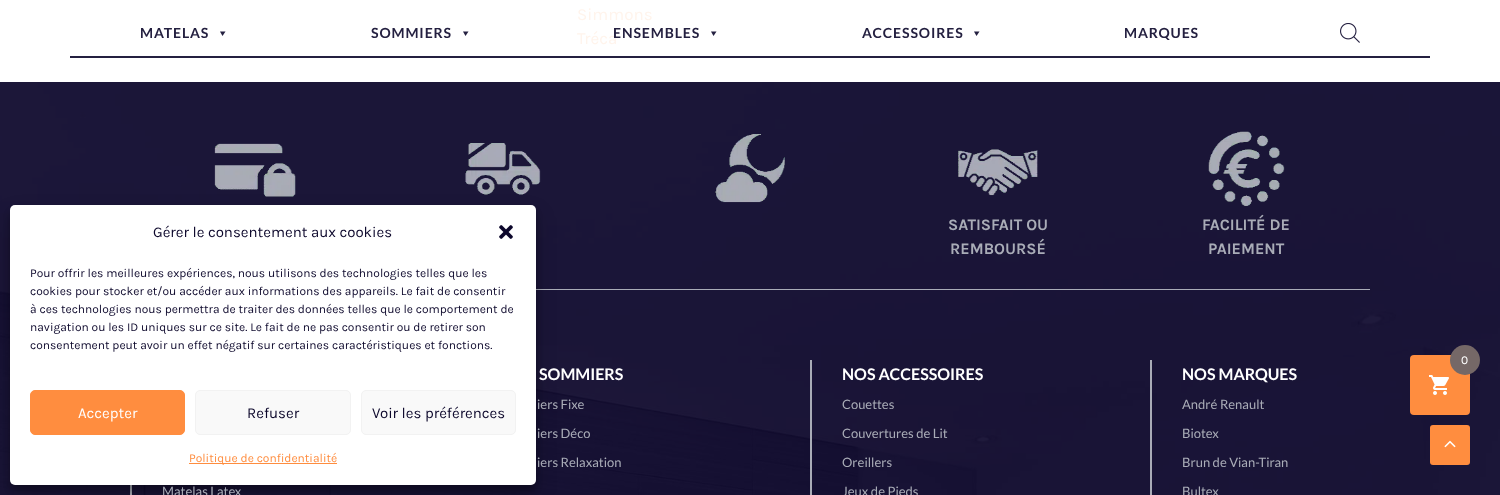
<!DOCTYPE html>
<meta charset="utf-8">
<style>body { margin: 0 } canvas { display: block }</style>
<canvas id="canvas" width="1500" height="495"></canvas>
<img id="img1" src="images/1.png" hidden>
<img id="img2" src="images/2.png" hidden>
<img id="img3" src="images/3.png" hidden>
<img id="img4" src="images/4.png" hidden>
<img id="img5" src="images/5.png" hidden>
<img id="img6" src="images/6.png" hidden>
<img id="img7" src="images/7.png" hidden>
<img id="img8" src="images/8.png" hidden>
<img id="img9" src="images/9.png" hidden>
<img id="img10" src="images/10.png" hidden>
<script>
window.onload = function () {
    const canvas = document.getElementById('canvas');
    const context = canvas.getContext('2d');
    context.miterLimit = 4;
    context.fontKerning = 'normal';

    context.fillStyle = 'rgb(255, 255, 255)';
    context.fillRect(0, 0, 1500, 495);
    context.fillStyle = 'rgb(36, 32, 64)';
    context.fillRect(70, 56, 1360, 2);
    context.beginPath();
    context.moveTo(225.5, 31.5);
    context.lineTo(222.5, 36);
    context.lineTo(220, 31.5);
    context.closePath();
    context.fill();
    context.beginPath();
    context.moveTo(468.5, 31.5);
    context.lineTo(465.5, 36);
    context.lineTo(463, 31.5);
    context.closePath();
    context.fill();
    context.beginPath();
    context.moveTo(716.5, 31.5);
    context.lineTo(713.5, 36);
    context.lineTo(711, 31.5);
    context.closePath();
    context.fill();
    context.beginPath();
    context.moveTo(979.5, 31.5);
    context.lineTo(976.5, 36);
    context.lineTo(974, 31.5);
    context.closePath();
    context.fill();
    context.drawImage(document.getElementById('img1'), 1340, 23, 20, 20);
    context.fillStyle = 'rgb(12, 7, 44)';
    context.fillRect(0, 82, 1500, 413);
    context.drawImage(document.getElementById('img2'), 0, 82, 1500, 413);
    context.fillStyle = 'rgb(169, 172, 183)';
    context.fillRect(536, 289, 834, 1);
    context.drawImage(document.getElementById('img3'), 214, 143, 82, 54);
    context.drawImage(document.getElementById('img4'), 465, 143, 76, 52);
    context.drawImage(document.getElementById('img5'), 715, 134, 70, 69);
    context.drawImage(document.getElementById('img6'), 958, 149, 80, 47);
    context.drawImage(document.getElementById('img7'), 1208, 131, 77, 75);
    context.fillRect(130, 485, 2, 10);
    context.fillRect(810, 360, 2, 135);
    context.fillRect(1150, 360, 2, 135);
    context.fillStyle = 'rgba(0, 0, 0, 0.23)';
    context.filter = 'blur(3px)';
    context.beginPath();
    context.roundRect(10, 211, 526, 280, 5);
    context.fill();
    context.filter = 'none';
    context.fillStyle = 'rgba(0, 0, 0, 0.19)';
    context.filter = 'blur(10px)';
    context.beginPath();
    context.roundRect(10, 215, 526, 280, 5);
    context.fill();
    context.filter = 'none';
    context.fillStyle = 'rgb(255, 255, 255)';
    context.beginPath();
    context.roundRect(10, 205, 526, 280, 5);
    context.fill();
    context.drawImage(document.getElementById('img8'), 499, 225, 14, 14);
    context.fillStyle = 'rgb(255, 141, 63)';
    context.beginPath();
    context.roundRect(30.5, 390.5, 154, 44, 4.5);
    context.fill();
    context.strokeStyle = 'rgb(255, 141, 63)';
    context.stroke();
    context.fillStyle = 'rgb(249, 249, 249)';
    context.beginPath();
    context.roundRect(195.5, 390.5, 155, 44, 4.5);
    context.fill();
    context.strokeStyle = 'rgb(242, 242, 242)';
    context.stroke();
    context.beginPath();
    context.roundRect(361.5, 390.5, 154, 44, 4.5);
    context.fill();
    context.stroke();
    context.fillStyle = 'rgb(255, 141, 63)';
    context.fillRect(189, 463, 148, 1);
    context.beginPath();
    context.roundRect(1410, 355, 60, 60, 4);
    context.fill();
    context.fillStyle = 'rgb(117, 104, 103)';
    context.beginPath();
    context.arc(1465, 360, 15, 0, 2 * Math.PI);
    context.fill();
    context.drawImage(document.getElementById('img9'), 1429, 375, 20, 20);
    context.fillStyle = 'rgb(255, 141, 63)';
    context.beginPath();
    context.roundRect(1430, 425, 40, 40, 3);
    context.fill();
    context.drawImage(document.getElementById('img10'), 1444, 440, 12, 8);
    context.font = '17px Karla';
    context.fillStyle = 'rgb(255, 244, 236)';
    context.fillText('Simmons', 577, 20);
    context.fillText('Tréca', 577, 44);
    context.letterSpacing = '0.9px';
    context.font = 'bold 14px Lato';
    context.fillStyle = 'rgb(36, 32, 64)';
    context.fillText('MATELAS', 140, 38);
    context.fillText('SOMMIERS', 371, 38);
    context.fillText('ENSEMBLES', 613, 38);
    context.fillText('ACCESSOIRES', 862, 38);
    context.fillText('MARQUES', 1124, 38);
    context.letterSpacing = '0px';
    context.font = 'bold 16px Karla';
    context.fillStyle = 'rgb(169, 172, 183)';
    context.fillText('SATISFAIT OU', 948, 230);
    context.fillText('REMBOURSÉ', 950, 254);
    context.fillText('FACILITÉ DE', 1202, 230);
    context.fillText('PAIEMENT', 1208, 254);
    context.font = '13px Lato';
    context.fillText('Matelas Latex', 162, 496);
    context.font = 'bold 16px Lato';
    context.fillStyle = 'rgb(255, 255, 255)';
    context.fillText('SOMMIERS', 539, 380);
    context.font = '13px Lato';
    context.fillStyle = 'rgb(169, 172, 183)';
    context.fillText('iers Fixe', 537, 409);
    context.fillText('iers Déco', 537, 438);
    context.fillText('iers Relaxation', 537, 467);
    context.font = 'bold 16px Lato';
    context.fillStyle = 'rgb(255, 255, 255)';
    context.fillText('NOS ACCESSOIRES', 842, 380);
    context.font = '13px Lato';
    context.fillStyle = 'rgb(169, 172, 183)';
    context.fillText('Couettes', 842, 409);
    context.fillText('Couvertures de Lit', 842, 438);
    context.fillText('Oreillers', 842, 467);
    context.fillText('Jeux de Pieds', 842, 496);
    context.font = 'bold 16px Lato';
    context.fillStyle = 'rgb(255, 255, 255)';
    context.fillText('NOS MARQUES', 1182, 380);
    context.font = '13px Lato';
    context.fillStyle = 'rgb(169, 172, 183)';
    context.fillText('André Renault', 1182, 409);
    context.fillText('Biotex', 1182, 438);
    context.fillText('Brun de Vian-Tiran', 1182, 467);
    context.fillText('Bultex', 1182, 496);
    context.font = '15px Karla';
    context.fillStyle = 'rgb(12, 7, 43)';
    context.fillText('Gérer le consentement aux cookies', 153, 237);
    context.font = '12px Karla';
    context.fillText('Pour offrir les meilleures expériences, nous utilisons des technologies telles que les', 30, 277);
    context.fillText('cookies pour stocker et/ou accéder aux informations des appareils. Le fait de consentir', 30, 295);
    context.fillText('à ces technologies nous permettra de traiter des données telles que le comportement de', 30, 313);
    context.fillText('navigation ou les ID uniques sur ce site. Le fait de ne pas consentir ou de retirer son', 30, 331);
    context.fillText('consentement peut avoir un effet négatif sur certaines caractéristiques et fonctions.', 30, 349);
    context.font = '15px Karla';
    context.fillStyle = 'rgb(255, 255, 255)';
    context.fillText('Accepter', 78, 418);
    context.fillStyle = 'rgb(12, 7, 43)';
    context.fillText('Refuser', 247, 418);
    context.fillText('Voir les préférences', 372, 418);
    context.font = '12px Karla';
    context.fillStyle = 'rgb(255, 141, 63)';
    context.fillText('Politique de confidentialité', 189, 462);
    context.fillStyle = 'rgb(255, 255, 255)';
    context.fillText('0', 1461, 364);
};
</script>
